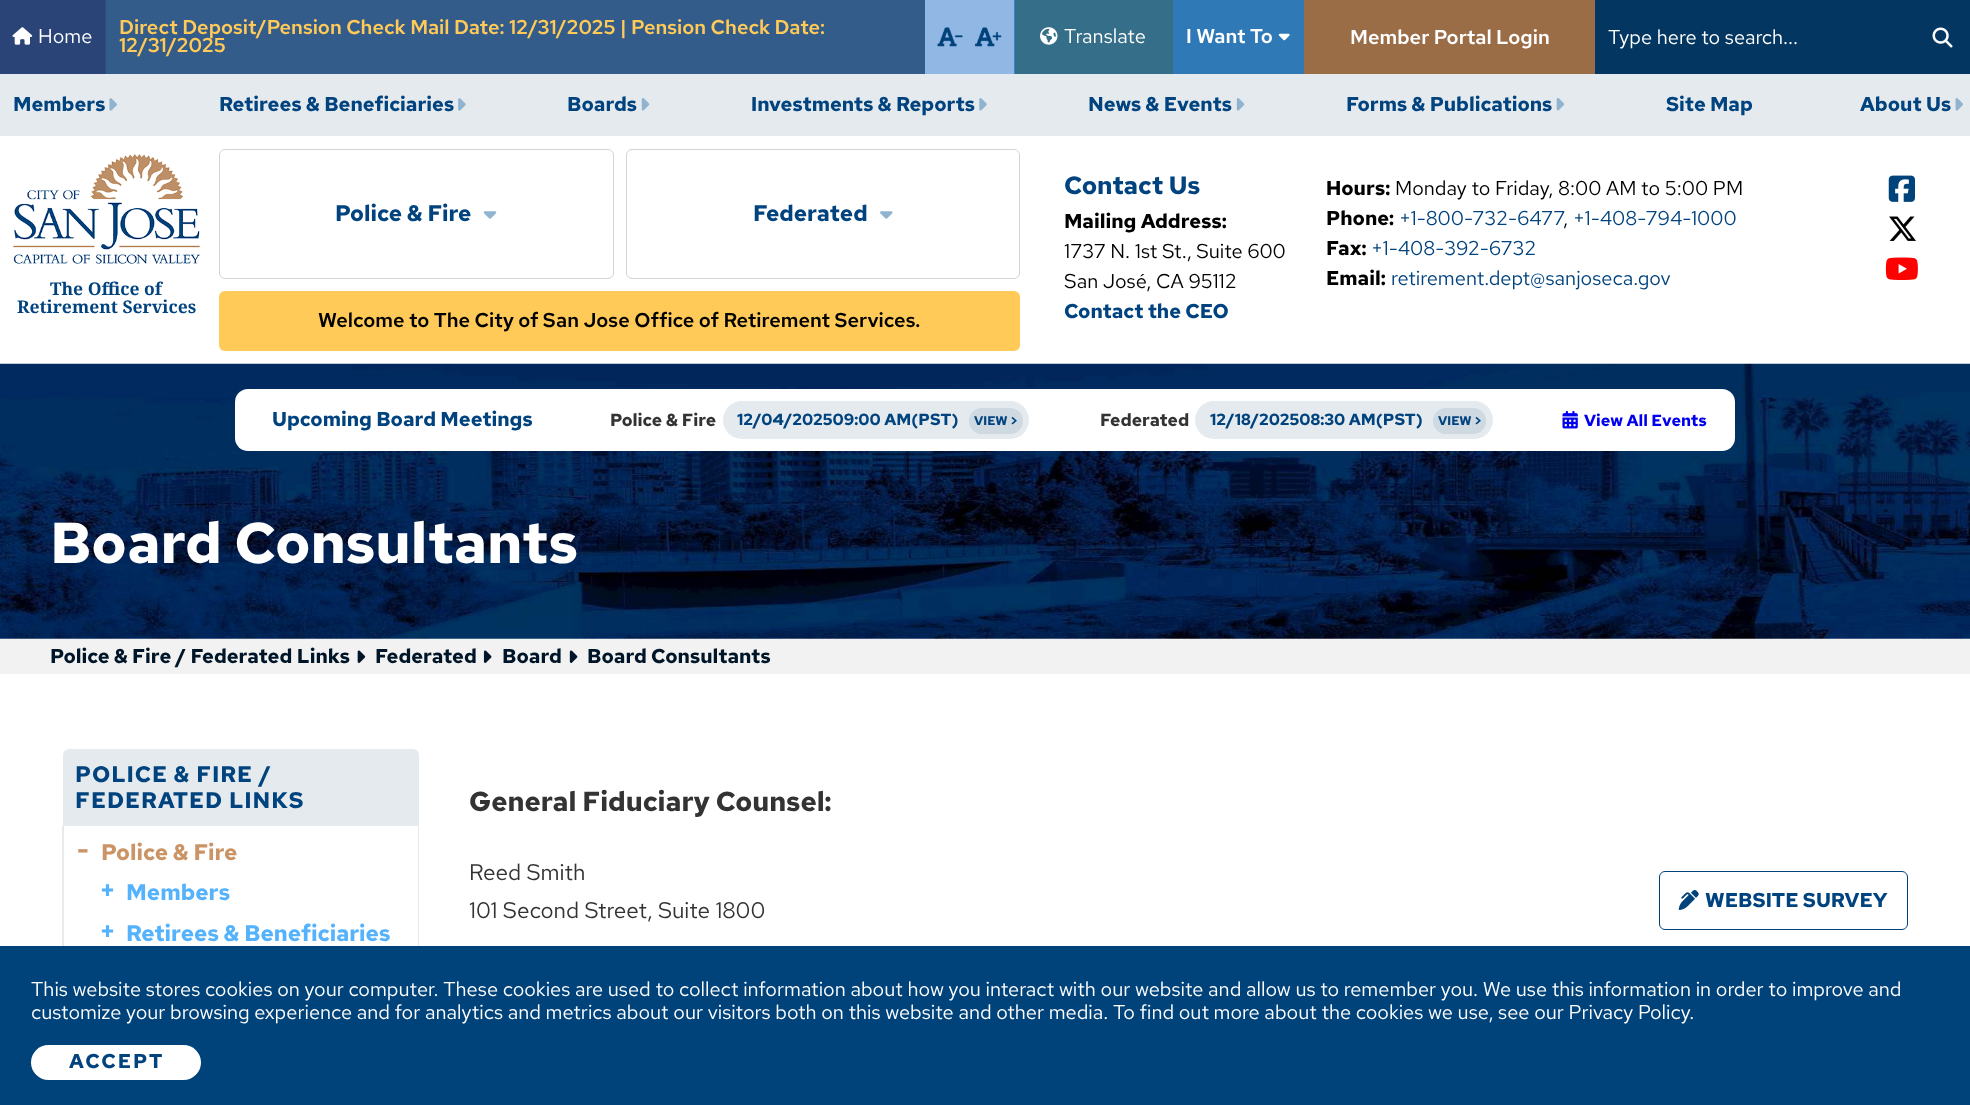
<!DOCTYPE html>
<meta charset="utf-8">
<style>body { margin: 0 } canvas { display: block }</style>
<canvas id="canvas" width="1970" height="1105"></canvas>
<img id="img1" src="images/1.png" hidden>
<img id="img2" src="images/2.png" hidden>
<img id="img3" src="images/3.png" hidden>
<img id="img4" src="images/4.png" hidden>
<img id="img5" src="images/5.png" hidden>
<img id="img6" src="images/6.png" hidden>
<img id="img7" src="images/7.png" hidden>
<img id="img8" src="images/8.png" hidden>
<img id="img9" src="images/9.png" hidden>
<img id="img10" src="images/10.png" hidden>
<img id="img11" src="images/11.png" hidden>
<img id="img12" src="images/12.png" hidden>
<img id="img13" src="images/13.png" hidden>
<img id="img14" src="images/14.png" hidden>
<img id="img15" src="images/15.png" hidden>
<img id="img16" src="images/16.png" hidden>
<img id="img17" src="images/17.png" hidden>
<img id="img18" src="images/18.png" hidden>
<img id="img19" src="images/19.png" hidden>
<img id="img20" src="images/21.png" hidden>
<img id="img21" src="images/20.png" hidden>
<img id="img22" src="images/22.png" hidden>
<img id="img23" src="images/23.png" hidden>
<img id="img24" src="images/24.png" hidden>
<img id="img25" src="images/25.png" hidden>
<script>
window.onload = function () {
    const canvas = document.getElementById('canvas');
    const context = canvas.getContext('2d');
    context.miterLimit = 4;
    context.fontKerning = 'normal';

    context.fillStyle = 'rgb(255, 255, 255)';
    context.fillRect(0, 0, 1970, 1105);
    context.fillStyle = 'rgb(42, 68, 119)';
    context.fillRect(0, 0, 105, 74);
    context.fillStyle = 'rgb(47, 75, 133)';
    context.fillRect(105, 0, 1, 74);
    context.drawImage(document.getElementById('img1'), 12, 27, 21, 18);
    context.fillStyle = 'rgb(51, 92, 138)';
    context.fillRect(106, 0, 819, 74);
    context.fillStyle = 'rgb(145, 184, 229)';
    context.fillRect(925, 0, 89, 74);
    context.fillStyle = 'rgb(51, 134, 201)';
    context.fillRect(1014, 0, 1, 74);
    context.drawImage(document.getElementById('img2'), 937, 27, 26, 20);
    context.drawImage(document.getElementById('img3'), 975, 27, 27, 20);
    context.fillStyle = 'rgb(53, 110, 136)';
    context.fillRect(1015, 0, 158, 74);
    context.drawImage(document.getElementById('img4'), 1040, 27, 18, 18);
    context.fillStyle = 'rgb(47, 121, 183)';
    context.fillRect(1173, 0, 131, 74);
    context.drawImage(document.getElementById('img5'), 1278, 33, 12, 8);
    context.fillStyle = 'rgb(154, 109, 71)';
    context.fillRect(1304, 0, 291, 74);
    context.fillStyle = 'rgb(3, 54, 96)';
    context.fillRect(1595, 0, 375, 74);
    context.drawImage(document.getElementById('img6'), 1932, 27, 21, 21);
    context.fillStyle = 'rgb(229, 234, 238)';
    context.fillRect(0, 74, 1970, 62);
    context.drawImage(document.getElementById('img7'), 109, 98, 8, 13);
    context.drawImage(document.getElementById('img8'), 458, 98, 8, 13);
    context.drawImage(document.getElementById('img9'), 641, 98, 9, 13);
    context.drawImage(document.getElementById('img10'), 979, 98, 8, 13);
    context.drawImage(document.getElementById('img11'), 1236, 98, 9, 13);
    context.drawImage(document.getElementById('img12'), 1556, 98, 9, 13);
    context.drawImage(document.getElementById('img13'), 1955, 98, 8, 13);
    context.beginPath();
    context.roundRect(219.5, 149.5, 394, 129, 5.5);
    context.strokeStyle = 'rgb(208, 213, 217)';
    context.stroke();
    context.drawImage(document.getElementById('img14'), 483, 211, 14, 8);
    context.beginPath();
    context.roundRect(626.5, 149.5, 393, 129, 5.5);
    context.stroke();
    context.drawImage(document.getElementById('img15'), 880, 211, 13, 8);
    context.drawImage(document.getElementById('img16'), 1888, 175, 27, 27);
    context.drawImage(document.getElementById('img17'), 1889, 216, 27, 25);
    context.drawImage(document.getElementById('img18'), 1885, 257, 33, 23);
    context.drawImage(document.getElementById('img19'), 13, 154, 187, 110);
    context.fillStyle = 'rgb(255, 202, 87)';
    context.beginPath();
    context.roundRect(219, 291, 801, 60, 6);
    context.fill();
    context.drawImage(document.getElementById('img20'), 0, 363, 1970, 276);
    context.fillStyle = 'rgb(255, 255, 255)';
    context.beginPath();
    context.roundRect(235, 389, 1500, 62, 13);
    context.fill();
    context.fillStyle = 'rgb(229, 234, 238)';
    context.beginPath();
    context.roundRect(723, 401, 306, 38, 19);
    context.fill();
    context.fillStyle = 'rgb(206, 217, 226)';
    context.beginPath();
    context.roundRect(969, 408, 54, 26, 13);
    context.fill();
    context.fillStyle = 'rgb(229, 234, 238)';
    context.beginPath();
    context.roundRect(1195, 401, 298, 38, 19);
    context.fill();
    context.fillStyle = 'rgb(206, 217, 226)';
    context.beginPath();
    context.roundRect(1433, 408, 53, 26, 13);
    context.fill();
    context.drawImage(document.getElementById('img21'), 1562, 410, 16, 19);
    context.fillStyle = 'rgb(242, 242, 242)';
    context.fillRect(0, 639, 1970, 35);
    context.drawImage(document.getElementById('img22'), 357, 650, 9, 13);
    context.drawImage(document.getElementById('img23'), 483, 650, 9, 13);
    context.drawImage(document.getElementById('img24'), 569, 650, 9, 13);
    context.fillStyle = 'rgb(229, 234, 238)';
    context.beginPath();
    context.roundRect(63, 749, 356, 77, [6, 6, 0, 0]);
    context.fill();
    context.beginPath();
    context.moveTo(62, 826);
    context.lineTo(419, 826);
    context.lineTo(419, 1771);
    context.bezierCurveTo(419, 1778, 413, 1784, 406, 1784);
    context.lineTo(75, 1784);
    context.bezierCurveTo(68, 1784, 62, 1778, 62, 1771);
    context.closePath();
    context.moveTo(64, 826);
    context.lineTo(418, 826);
    context.lineTo(418, 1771);
    context.bezierCurveTo(418, 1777, 412, 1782, 406, 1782);
    context.lineTo(75, 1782);
    context.bezierCurveTo(69, 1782, 64, 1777, 64, 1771);
    context.closePath();
    context.fill('evenodd');
    context.beginPath();
    context.roundRect(1659.5, 871.5, 248, 58, 5.5);
    context.strokeStyle = 'rgb(0, 67, 122)';
    context.stroke();
    context.drawImage(document.getElementById('img25'), 1678, 890, 21, 20);
    context.fillStyle = 'rgb(0, 67, 122)';
    context.fillRect(0, 946, 1970, 159);
    context.fillStyle = 'rgb(255, 255, 255)';
    context.beginPath();
    context.roundRect(31, 1045, 170, 35, 17.5);
    context.fill();
    context.font = '20px Red Hat Text';
    context.fillText('Home', 38, 43);
    context.font = '600 20px Red Hat Text';
    context.fillStyle = 'rgb(255, 202, 87)';
    context.fillText('Direct Deposit/Pension Check Mail Date: 12/31/2025 | Pension Check Date:', 119, 34);
    context.fillText('12/31/2025', 119, 52);
    context.font = '20px Red Hat Text';
    context.fillStyle = 'rgb(255, 255, 255)';
    context.fillText('Translate', 1064, 43);
    context.font = '600 20px Red Hat Text';
    context.fillText('I Want To', 1186, 43);
    context.fillText('Member Portal Login', 1350, 44);
    context.font = '20px Red Hat Text';
    context.fillText('Type here to search...', 1608, 44);
    context.font = 'bold 20px Red Hat Text';
    context.fillStyle = 'rgb(0, 67, 126)';
    context.fillText('Members', 13, 111);
    context.fillText('Retirees & Beneficiaries', 219, 111);
    context.fillText('Boards', 567, 111);
    context.fillText('Investments & Reports', 751, 111);
    context.fillText('News & Events', 1088, 111);
    context.fillText('Forms & Publications', 1346, 111);
    context.fillText('Site Map', 1666, 111);
    context.fillText('About Us', 1860, 111);
    context.font = 'bold 22.5px Red Hat Text';
    context.fillText('Police & Fire', 335, 221);
    context.fillText('Federated', 753, 221);
    context.font = 'bold 25px Red Hat Text';
    context.fillText('Contact Us', 1064, 194);
    context.font = 'bold 20px Red Hat Text';
    context.fillStyle = 'rgb(0, 0, 0)';
    context.fillText('Hours:', 1326, 195);
    context.font = '20px Red Hat Text';
    context.fillText('Monday to Friday, 8:00 AM to 5:00 PM', 1395, 195);
    context.font = 'bold 20px Red Hat Text';
    context.fillText('Phone:', 1326, 225);
    context.font = '20px Red Hat Text';
    context.fillStyle = 'rgb(0, 67, 126)';
    context.fillText('+1-800-732-6477', 1399, 225);
    context.fillText('+1-408-794-1000', 1573, 225);
    context.fillStyle = 'rgb(0, 0, 0)';
    context.fillText(',', 1563, 225);
    context.font = 'bold 20px Red Hat Text';
    context.fillText('Fax:', 1326, 255);
    context.font = '20px Red Hat Text';
    context.fillStyle = 'rgb(0, 67, 126)';
    context.fillText('+1-408-392-6732', 1371, 255);
    context.font = 'bold 20px Red Hat Text';
    context.fillStyle = 'rgb(0, 0, 0)';
    context.fillText('Email:', 1326, 285);
    context.font = '20px Red Hat Text';
    context.fillStyle = 'rgb(0, 67, 126)';
    context.fillText('retirement.dept@sanjoseca.gov', 1391, 285);
    context.font = 'bold 20px Red Hat Text';
    context.fillStyle = 'rgb(0, 0, 0)';
    context.fillText('Mailing Address:', 1064, 228);
    context.font = '20px Red Hat Text';
    context.fillText('1737 N. 1st St., Suite 600', 1064, 258);
    context.fillText('San José, CA 95112', 1064, 288);
    context.font = 'bold 20px Red Hat Text';
    context.fillStyle = 'rgb(0, 67, 126)';
    context.fillText('Contact the CEO', 1064, 318);
    context.font = 'bold 17.5px Noto Serif';
    context.fillText('The Office of', 50, 295);
    context.fillText('Retirement Services', 17, 313);
    context.font = '600 20px Red Hat Text';
    context.fillStyle = 'rgb(0, 0, 0)';
    context.fillText('Welcome to The City of San Jose Office of Retirement Services.', 318, 327);
    context.font = 'bold 20px Red Hat Text';
    context.fillStyle = 'rgb(0, 67, 126)';
    context.fillText('Upcoming Board Meetings', 272, 426);
    context.font = 'bold 17.5px Red Hat Text';
    context.fillStyle = 'rgb(51, 51, 51)';
    context.fillText('Police & Fire', 610, 426);
    context.font = 'bold 16.25px Red Hat Text';
    context.fillStyle = 'rgb(0, 67, 126)';
    context.fillText('12/04/202509:00 AM(PST)', 737, 425);
    context.font = 'bold 12.5px Red Hat Text';
    context.fillText('VIEW >', 974, 425);
    context.font = 'bold 17.5px Red Hat Text';
    context.fillStyle = 'rgb(51, 51, 51)';
    context.fillText('Federated', 1100, 426);
    context.font = 'bold 16.25px Red Hat Text';
    context.fillStyle = 'rgb(0, 67, 126)';
    context.fillText('12/18/202508:30 AM(PST)', 1210, 425);
    context.font = 'bold 12.5px Red Hat Text';
    context.fillText('VIEW >', 1438, 425);
    context.font = 'bold 16.25px Red Hat Text';
    context.fillStyle = 'rgb(0, 0, 238)';
    context.fillText('View All Events', 1584, 426);
    context.font = 'bold 57.5px Red Hat Text';
    context.fillStyle = 'rgb(255, 255, 255)';
    context.fillText('Board Consultants', 50, 563);
    context.font = 'bold 20px Red Hat Text';
    context.fillStyle = 'rgb(0, 22, 40)';
    context.fillText('Police & Fire / Federated Links', 50, 663);
    context.fillText('Federated', 375, 663);
    context.fillText('Board', 502, 663);
    context.fillText('Board Consultants', 587, 663);
    context.letterSpacing = '1px';
    context.font = 'bold 22.5px Red Hat Text';
    context.fillStyle = 'rgb(0, 67, 126)';
    context.fillText('POLICE & FIRE /', 75, 782);
    context.fillText('FEDERATED LINKS', 75, 808);
    context.letterSpacing = '0px';
    context.font = 'bold 25px Red Hat Text';
    context.fillStyle = 'rgb(203, 148, 102)';
    context.fillText('-', 77, 858);
    context.font = 'bold 22.5px Red Hat Text';
    context.fillText('Police & Fire', 101, 860);
    context.font = 'bold 25px Red Hat Text';
    context.fillStyle = 'rgb(85, 178, 253)';
    context.fillText('+', 100, 899);
    context.font = 'bold 22.5px Red Hat Text';
    context.fillText('Members', 126, 900);
    context.font = 'bold 25px Red Hat Text';
    context.fillText('+', 100, 940);
    context.font = 'bold 22.5px Red Hat Text';
    context.fillText('Retirees & Beneficiaries', 126, 941);
    context.font = 'bold 27.5px Red Hat Text';
    context.fillStyle = 'rgb(51, 51, 51)';
    context.fillText('General Fiduciary Counsel:', 469, 811);
    context.font = '22.5px Red Hat Text';
    context.fillText('Reed Smith', 469, 880);
    context.fillText('101 Second Street, Suite 1800', 469, 918);
    context.font = 'bold 20px Red Hat Text';
    context.fillStyle = 'rgb(0, 67, 126)';
    context.fillText('WEBSITE SURVEY', 1705, 907);
    context.font = '20px Red Hat Text';
    context.fillStyle = 'rgb(255, 255, 255)';
    context.fillText('This website stores cookies on your computer. These cookies are used to collect information about how you interact with our website and allow us to remember you. We use this information in order to improve and', 31, 996);
    context.fillText('customize your browsing experience and for analytics and metrics about our visitors both on this website and other media. To find out more about the cookies we use, see our Privacy Policy.', 31, 1019);
    context.letterSpacing = '2px';
    context.font = 'bold 20px Red Hat Text';
    context.fillStyle = 'rgb(0, 67, 126)';
    context.fillText('ACCEPT', 69, 1068);
};
</script>
